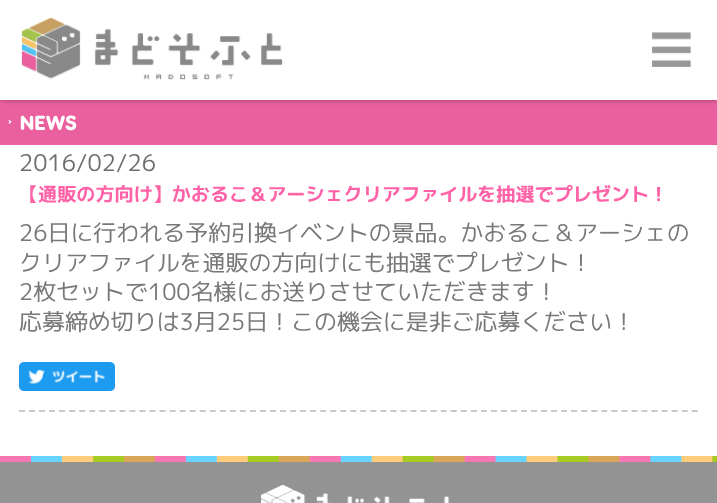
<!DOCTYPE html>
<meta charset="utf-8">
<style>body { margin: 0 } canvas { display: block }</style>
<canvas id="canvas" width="717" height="503"></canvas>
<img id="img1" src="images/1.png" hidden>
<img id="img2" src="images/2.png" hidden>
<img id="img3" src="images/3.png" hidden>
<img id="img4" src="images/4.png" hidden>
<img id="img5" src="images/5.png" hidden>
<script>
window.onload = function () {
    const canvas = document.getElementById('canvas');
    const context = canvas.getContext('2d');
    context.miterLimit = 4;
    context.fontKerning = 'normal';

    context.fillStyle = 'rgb(255, 255, 255)';
    context.fillRect(0, 0, 717, 503);
    context.fillStyle = 'rgb(234, 96, 158)';
    context.beginPath();
    context.moveTo(0, 99);
    context.lineTo(717, 100);
    context.lineTo(717, 145);
    context.lineTo(0, 145);
    context.closePath();
    context.fill();
    context.fillStyle = 'rgba(0, 0, 0, 0.25)';
    context.filter = 'blur(2.5px)';
    context.beginPath();
    context.rect(1, 1, 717, 100);
    context.fill();
    context.filter = 'none';
    context.fillStyle = 'rgb(255, 255, 255)';
    context.fillRect(0, 0, 717, 100);
    context.drawImage(document.getElementById('img1'), 21, 18, 262, 62);
    context.drawImage(document.getElementById('img2'), 652, 32, 39, 35);
    context.beginPath();
    context.moveTo(9, 119.5);
    context.lineTo(11.5, 122);
    context.lineTo(10.5, 122.5);
    context.lineTo(8.5, 120.5);
    context.closePath();
    context.fill();
    context.beginPath();
    context.moveTo(10.5, 121);
    context.lineTo(11.5, 122);
    context.lineTo(9, 124);
    context.lineTo(8.5, 123);
    context.closePath();
    context.fill();
    context.beginPath();
    context.moveTo(19, 411);
    context.lineTo(698, 411);
    context.strokeStyle = 'rgb(200, 200, 200)';
    context.lineWidth = 2;
    context.setLineDash([6, 4.04]);
    context.stroke();
    context.drawImage(document.getElementById('img3'), 19, 362, 96, 29);
    context.fillStyle = 'rgb(147, 147, 147)';
    context.fillRect(0, 462, 717, 41);
    context.drawImage(document.getElementById('img4'), 0, 456, 717, 6);
    context.drawImage(document.getElementById('img5'), 261, 485, 189, 18);
    context.letterSpacing = '0.5px';
    context.font = '500 19.1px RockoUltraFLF';
    context.fillStyle = 'rgb(255, 255, 255)';
    context.fillText('NEWS', 20, 130);
    context.letterSpacing = '0px';
    context.font = '22.95px "M PLUS 1p"';
    context.fillStyle = 'rgb(110, 110, 110)';
    context.fillText('2016/02/26', 19, 171);
    context.font = 'bold 19.1px "M PLUS 1p"';
    context.fillStyle = 'rgb(255, 98, 167)';
    context.fillText('【通販の方向け】かおるこ＆アーシェクリアファイルを抽選でプレゼント！', 19, 201);
    context.font = '22.95px "M PLUS 1p"';
    context.fillStyle = 'rgb(120, 120, 120)';
    context.fillText('26日に行われる予約引換イベントの景品。かおるこ＆アーシェの', 19, 241);
    context.fillText('クリアファイルを通販の方向けにも抽選でプレゼント！', 19, 271);
    context.fillText('2枚セットで100名様にお送りさせていただきます！', 19, 300);
    context.fillText('応募締め切りは3月25日！この機会に是非ご応募ください！', 19, 330);
};
</script>
